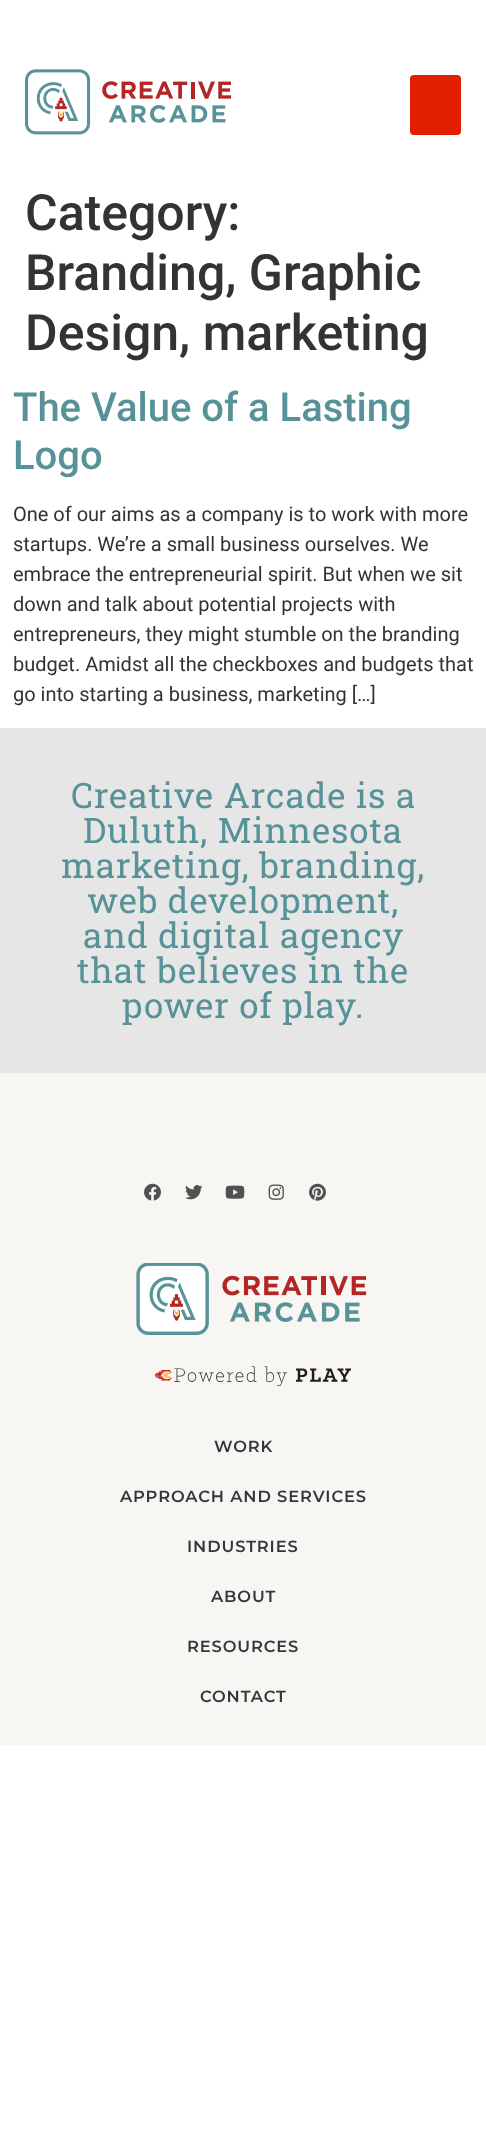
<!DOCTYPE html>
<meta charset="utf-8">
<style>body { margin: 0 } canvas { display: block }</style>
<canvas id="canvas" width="486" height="2144"></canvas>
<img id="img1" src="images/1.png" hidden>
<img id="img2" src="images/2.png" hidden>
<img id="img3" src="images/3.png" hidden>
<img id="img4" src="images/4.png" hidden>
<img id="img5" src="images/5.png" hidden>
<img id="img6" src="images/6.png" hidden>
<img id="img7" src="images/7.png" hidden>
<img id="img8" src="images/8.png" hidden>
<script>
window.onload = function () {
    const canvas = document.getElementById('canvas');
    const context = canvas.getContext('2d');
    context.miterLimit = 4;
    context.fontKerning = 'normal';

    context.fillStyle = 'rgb(255, 255, 255)';
    context.fillRect(0, 0, 486, 2144);
    context.drawImage(document.getElementById('img1'), 25, 69, 206, 66);
    context.fillStyle = 'rgb(227, 31, 0)';
    context.beginPath();
    context.roundRect(410, 75, 51, 60, 4);
    context.fill();
    context.fillStyle = 'rgb(230, 230, 230)';
    context.fillRect(0, 728, 486, 345);
    context.fillStyle = 'rgb(248, 246, 243)';
    context.fillRect(0, 1073, 486, 672);
    context.drawImage(document.getElementById('img2'), 144, 1183, 17, 18);
    context.drawImage(document.getElementById('img3'), 185, 1185, 18, 15);
    context.drawImage(document.getElementById('img4'), 225, 1185, 20, 14);
    context.drawImage(document.getElementById('img5'), 268, 1184, 16, 16);
    context.drawImage(document.getElementById('img6'), 309, 1183, 17, 18);
    context.drawImage(document.getElementById('img7'), 136, 1263, 231, 72);
    context.drawImage(document.getElementById('img8'), 155, 1366, 196, 20);
    context.font = '500 50px Roboto';
    context.fillStyle = 'rgb(51, 51, 51)';
    context.fillText('Category:', 25, 230);
    context.fillText('Branding, Graphic', 25, 290);
    context.fillText('Design, marketing', 25, 350);
    context.font = '500 40px Roboto';
    context.fillStyle = 'rgb(86, 146, 151)';
    context.fillText('The Value of a Lasting', 13, 421);
    context.fillText('Logo', 13, 469);
    context.font = '20px Roboto';
    context.fillStyle = 'rgb(51, 51, 51)';
    context.fillText('One of our aims as a company is to work with more', 13, 521);
    context.fillText('startups. We’re a small business ourselves. We', 13, 551);
    context.fillText('embrace the entrepreneurial spirit. But when we sit', 13, 581);
    context.fillText('down and talk about potential projects with', 13, 611);
    context.fillText('entrepreneurs, they might stumble on the branding', 13, 641);
    context.fillText('budget. Amidst all the checkboxes and budgets that', 13, 671);
    context.fillText('go into starting a business, marketing […]', 13, 701);
    context.letterSpacing = '0.9px';
    context.font = '35px Roboto Slab';
    context.fillStyle = 'rgb(86, 146, 151)';
    context.fillText('Creative Arcade is a', 71, 808);
    context.fillText('Duluth, Minnesota', 83, 843);
    context.fillText('marketing, branding,', 61, 878);
    context.fillText('web development,', 87, 913);
    context.fillText('and digital agency', 83, 948);
    context.fillText('that believes in the', 77, 983);
    context.fillText('power of play.', 122, 1018);
    context.font = '600 16.25px Montserrat';
    context.fillStyle = 'rgb(51, 55, 61)';
    context.fillText('WORK', 214, 1452);
    context.fillText('APPROACH AND SERVICES', 120, 1502);
    context.fillText('INDUSTRIES', 187, 1552);
    context.fillText('ABOUT', 211, 1602);
    context.fillText('RESOURCES', 187, 1652);
    context.fillText('CONTACT', 200, 1702);
};
</script>
